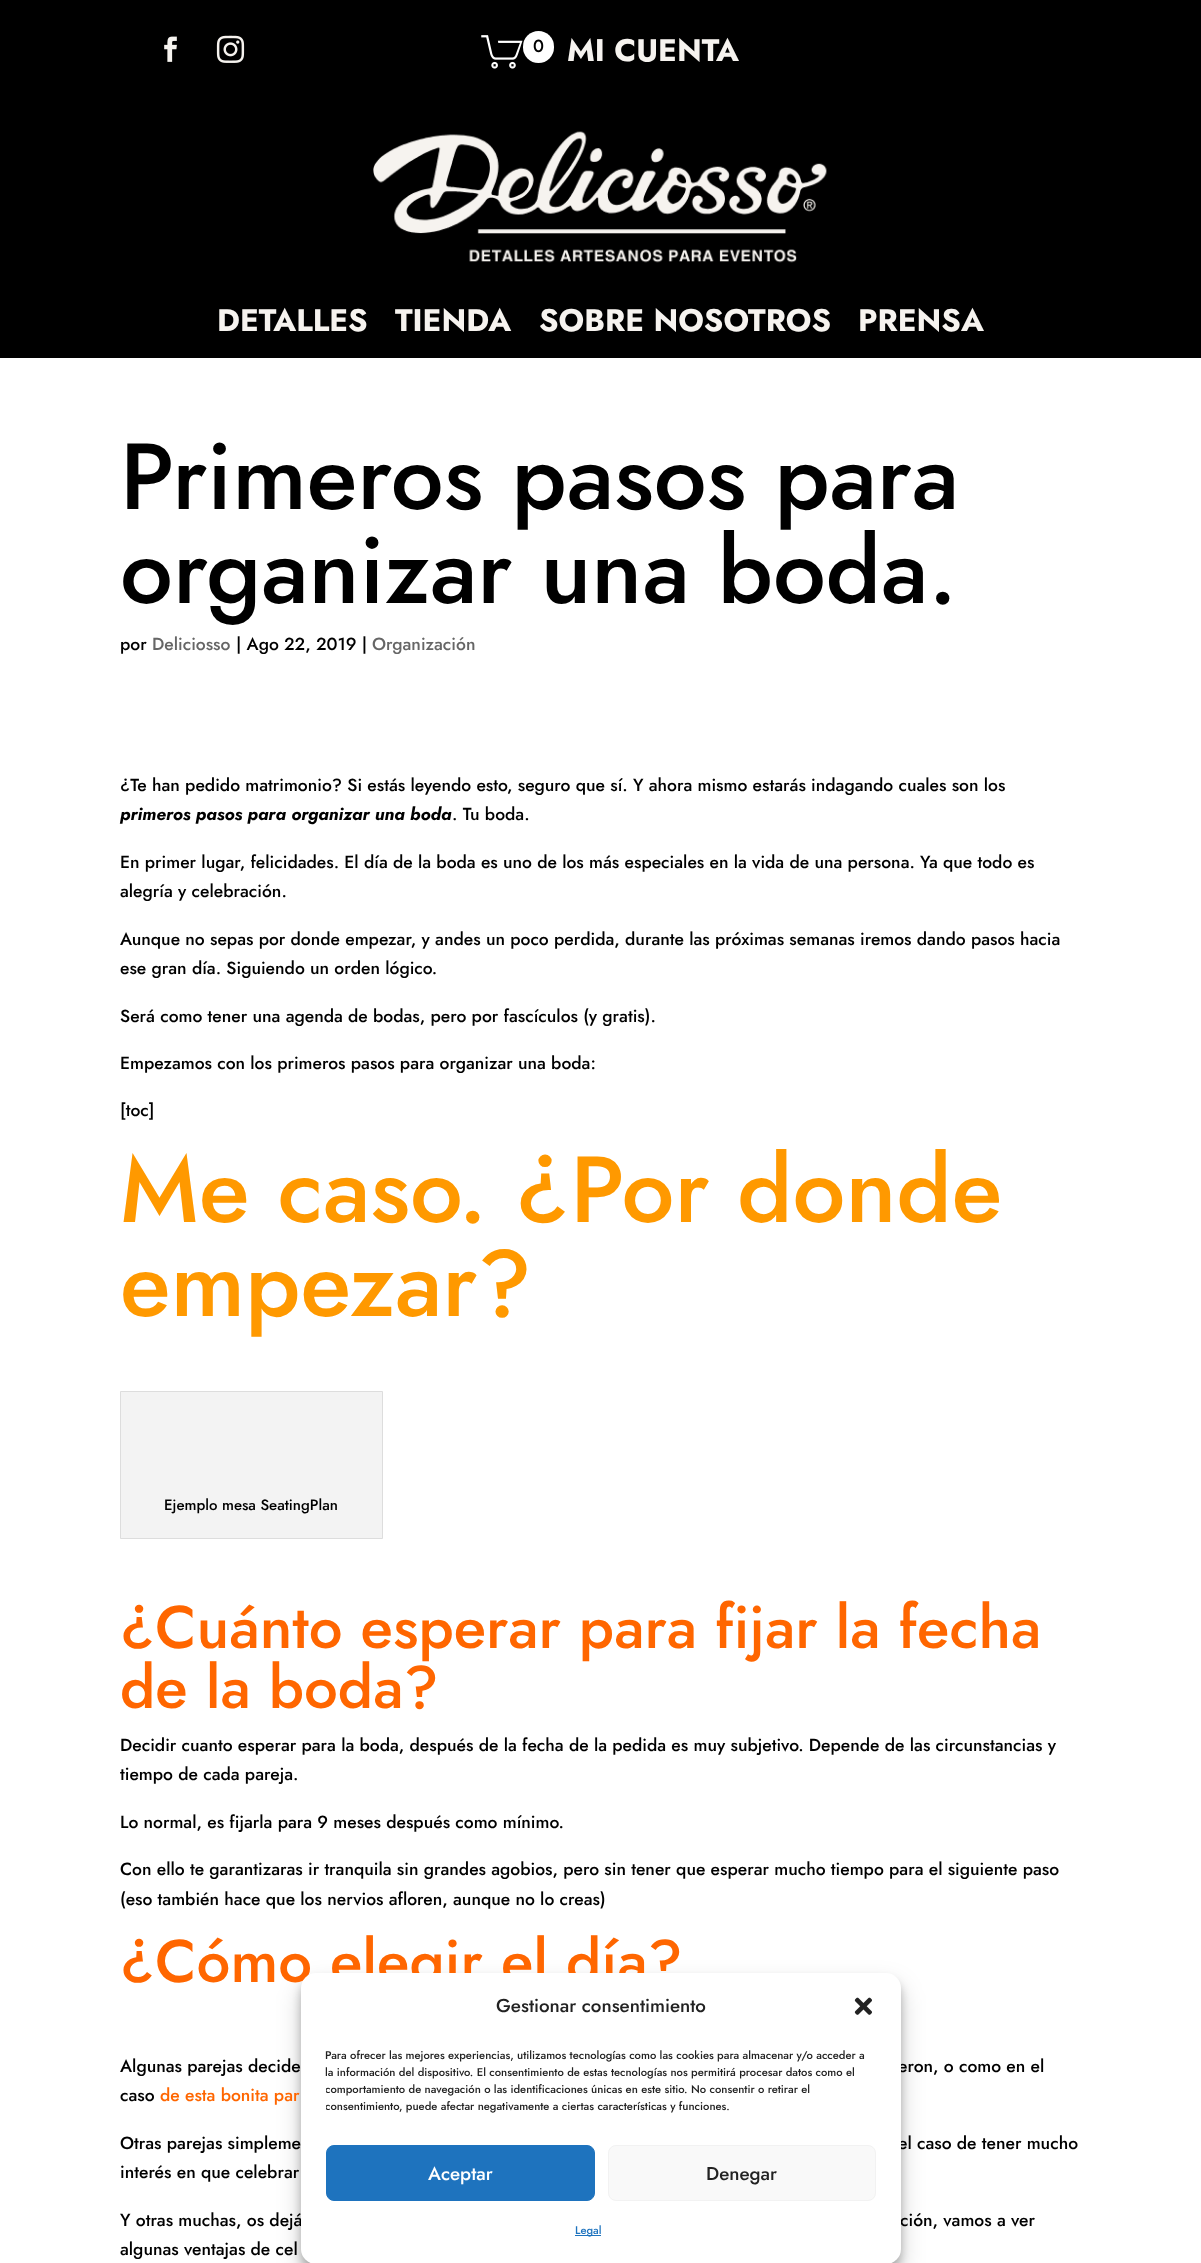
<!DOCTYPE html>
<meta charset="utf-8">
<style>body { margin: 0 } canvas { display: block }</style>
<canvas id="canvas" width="1201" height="2263"></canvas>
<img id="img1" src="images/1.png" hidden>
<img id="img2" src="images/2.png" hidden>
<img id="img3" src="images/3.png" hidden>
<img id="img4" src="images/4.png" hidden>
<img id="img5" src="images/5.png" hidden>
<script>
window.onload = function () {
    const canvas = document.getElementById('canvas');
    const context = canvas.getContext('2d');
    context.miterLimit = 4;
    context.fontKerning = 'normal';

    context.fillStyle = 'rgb(255, 255, 255)';
    context.fillRect(0, 0, 1201, 2263);
    context.fillStyle = 'rgb(0, 0, 0)';
    context.fillRect(0, 0, 1201, 358);
    context.drawImage(document.getElementById('img1'), 164, 36, 13, 26);
    context.drawImage(document.getElementById('img2'), 216, 35, 29, 28);
    context.drawImage(document.getElementById('img3'), 481, 35, 42, 34);
    context.fillStyle = 'rgb(255, 255, 255)';
    context.beginPath();
    context.roundRect(523, 31, 31, 32, 15.5);
    context.fill();
    context.drawImage(document.getElementById('img4'), 373, 131, 454, 132);
    context.fillStyle = 'rgb(243, 243, 243)';
    context.beginPath();
    context.rect(120.5, 1391.5, 262, 147);
    context.fill();
    context.strokeStyle = 'rgb(221, 221, 221)';
    context.stroke();
    context.fillStyle = 'rgba(0, 0, 0, 0.23)';
    context.filter = 'blur(4px)';
    context.beginPath();
    context.roundRect(301, 1980, 600, 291, 15);
    context.fill();
    context.filter = 'none';
    context.fillStyle = 'rgba(0, 0, 0, 0.19)';
    context.filter = 'blur(12.5px)';
    context.beginPath();
    context.roundRect(301, 1985, 600, 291, 15);
    context.fill();
    context.filter = 'none';
    context.font = '500 17.5px Jost';
    context.fillStyle = 'rgb(0, 0, 0)';
    context.fillText('0', 533, 52);
    context.font = 'bold 31.25px Jost';
    context.fillStyle = 'rgb(246, 243, 239)';
    context.fillText('MI CUENTA', 567, 61);
    context.fillText('DETALLES', 217, 331);
    context.fillText('TIENDA', 395, 331);
    context.fillText('SOBRE NOSOTROS', 539, 331);
    context.fillText('PRENSA', 858, 331);
    context.font = '500 93.75px Jost';
    context.fillStyle = 'rgb(0, 0, 0)';
    context.fillText('Primeros pasos para', 120, 509);
    context.fillText('organizar una boda.', 120, 603);
    context.font = '500 17.5px Jost';
    context.fillText('por', 120, 650);
    context.fillStyle = 'rgb(102, 102, 102)';
    context.fillText('Deliciosso', 152, 650);
    context.fillStyle = 'rgb(0, 0, 0)';
    context.fillText('| Ago 22, 2019 |', 236, 650);
    context.fillStyle = 'rgb(102, 102, 102)';
    context.fillText('Organización', 372, 650);
    context.fillStyle = 'rgb(0, 0, 0)';
    context.fillText('¿Te han pedido matrimonio? Si estás leyendo esto, seguro que sí. Y ahora mismo estarás indagando cuales son los', 120, 791);
    context.font = 'italic bold 17.5px Jost';
    context.fillText('primeros pasos para organizar una boda', 120, 820);
    context.font = '500 17.5px Jost';
    context.fillText('. Tu boda.', 452, 820);
    context.fillText('En primer lugar, felicidades. El día de la boda es uno de los más especiales en la vida de una persona. Ya que todo es', 120, 868);
    context.fillText('alegría y celebración.', 120, 897);
    context.fillText('Aunque no sepas por donde empezar, y andes un poco perdida, durante las próximas semanas iremos dando pasos hacia', 120, 945);
    context.fillText('ese gran día. Siguiendo un orden lógico.', 120, 974);
    context.fillText('Será como tener una agenda de bodas, pero por fascículos (y gratis).', 120, 1022);
    context.fillText('Empezamos con los primeros pasos para organizar una boda:', 120, 1069);
    context.fillText('[toc]', 120, 1116);
    context.font = '500 93.75px Jost';
    context.fillStyle = 'rgb(255, 153, 0)';
    context.fillText('Me caso. ¿Por donde', 120, 1222);
    context.fillText('empezar?', 120, 1316);
    context.font = '500 15px Jost';
    context.fillStyle = 'rgb(0, 0, 0)';
    context.fillText('Ejemplo mesa SeatingPlan', 164, 1510);
    context.font = '500 60px Jost';
    context.fillStyle = 'rgb(255, 102, 0)';
    context.fillText('¿Cuánto esperar para fijar la fecha', 120, 1648);
    context.fillText('de la boda?', 120, 1708);
    context.font = '500 17.5px Jost';
    context.fillStyle = 'rgb(0, 0, 0)';
    context.fillText('Decidir cuanto esperar para la boda, después de la fecha de la pedida es muy subjetivo. Depende de las circunstancias y', 120, 1751);
    context.fillText('tiempo de cada pareja.', 120, 1780);
    context.fillText('Lo normal, es fijarla para 9 meses después como mínimo.', 120, 1828);
    context.fillText('Con ello te garantizaras ir tranquila sin grandes agobios, pero sin tener que esperar mucho tiempo para el siguiente paso', 120, 1875);
    context.fillText('(eso también hace que los nervios afloren, aunque no lo creas)', 120, 1905);
    context.font = '500 60px Jost';
    context.fillStyle = 'rgb(255, 102, 0)';
    context.fillText('¿Cómo elegir el día?', 120, 1982);
    context.font = '500 17.5px Jost';
    context.fillStyle = 'rgb(0, 0, 0)';
    context.fillText('Algunas parejas decide', 120, 2072);
    context.fillText('eron, o como en el', 898, 2072);
    context.fillText('caso', 120, 2101);
    context.fillStyle = 'rgb(255, 102, 0)';
    context.fillText('de esta bonita par', 160, 2101);
    context.fillStyle = 'rgb(0, 0, 0)';
    context.fillText('Otras parejas simpleme', 120, 2149);
    context.fillText('el caso de tener mucho', 898, 2149);
    context.fillText('interés en que celebrar', 120, 2178);
    context.fillText('Y otras muchas, os dejá', 120, 2226);
    context.fillText('ción, vamos a ver', 900, 2226);
    context.fillText('algunas ventajas de cel', 120, 2255);
    context.fillStyle = 'rgb(255, 255, 255)';
    context.beginPath();
    context.roundRect(301, 1973, 600, 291, 15);
    context.fill();
    context.font = '500 18.75px Jost';
    context.fillStyle = 'rgb(34, 34, 34)';
    context.fillText('Gestionar consentimiento', 496, 2012);
    context.drawImage(document.getElementById('img5'), 854, 1997, 18, 18);
    context.font = '500 11.25px Jost';
    context.fillText('Para ofrecer las mejores experiencias, utilizamos tecnologías como las cookies para almacenar y/o acceder a', 325, 2059);
    context.fillText('la información del dispositivo. El consentimiento de estas tecnologías nos permitirá procesar datos como el', 325, 2076);
    context.save();
    context.beginPath();
    context.rect(326, 2046, 550, 74);
    context.clip();
    context.fillText('comportamiento de navegación o las identificaciones únicas en este sitio. No consentir o retirar el', 325, 2093);
    context.fillText('consentimiento, puede afectar negativamente a ciertas características y funciones.', 325, 2110);
    context.restore();
    context.fillStyle = 'rgb(30, 115, 190)';
    context.beginPath();
    context.roundRect(326.5, 2145.5, 268, 55, 7.5);
    context.fill();
    context.strokeStyle = 'rgb(30, 115, 190)';
    context.stroke();
    context.font = '500 18.75px Jost';
    context.fillStyle = 'rgb(255, 255, 255)';
    context.fillText('Aceptar', 428, 2180);
    context.fillStyle = 'rgb(249, 249, 249)';
    context.beginPath();
    context.roundRect(608.5, 2145.5, 267, 55, 7.5);
    context.fill();
    context.strokeStyle = 'rgb(242, 242, 242)';
    context.stroke();
    context.fillStyle = 'rgb(34, 34, 34)';
    context.fillText('Denegar', 706, 2180);
    context.fillStyle = 'rgb(30, 115, 190)';
    context.fillRect(575, 2235, 26, 1);
    context.font = '500 11.25px Jost';
    context.fillText('Legal', 575, 2234);
};
</script>
